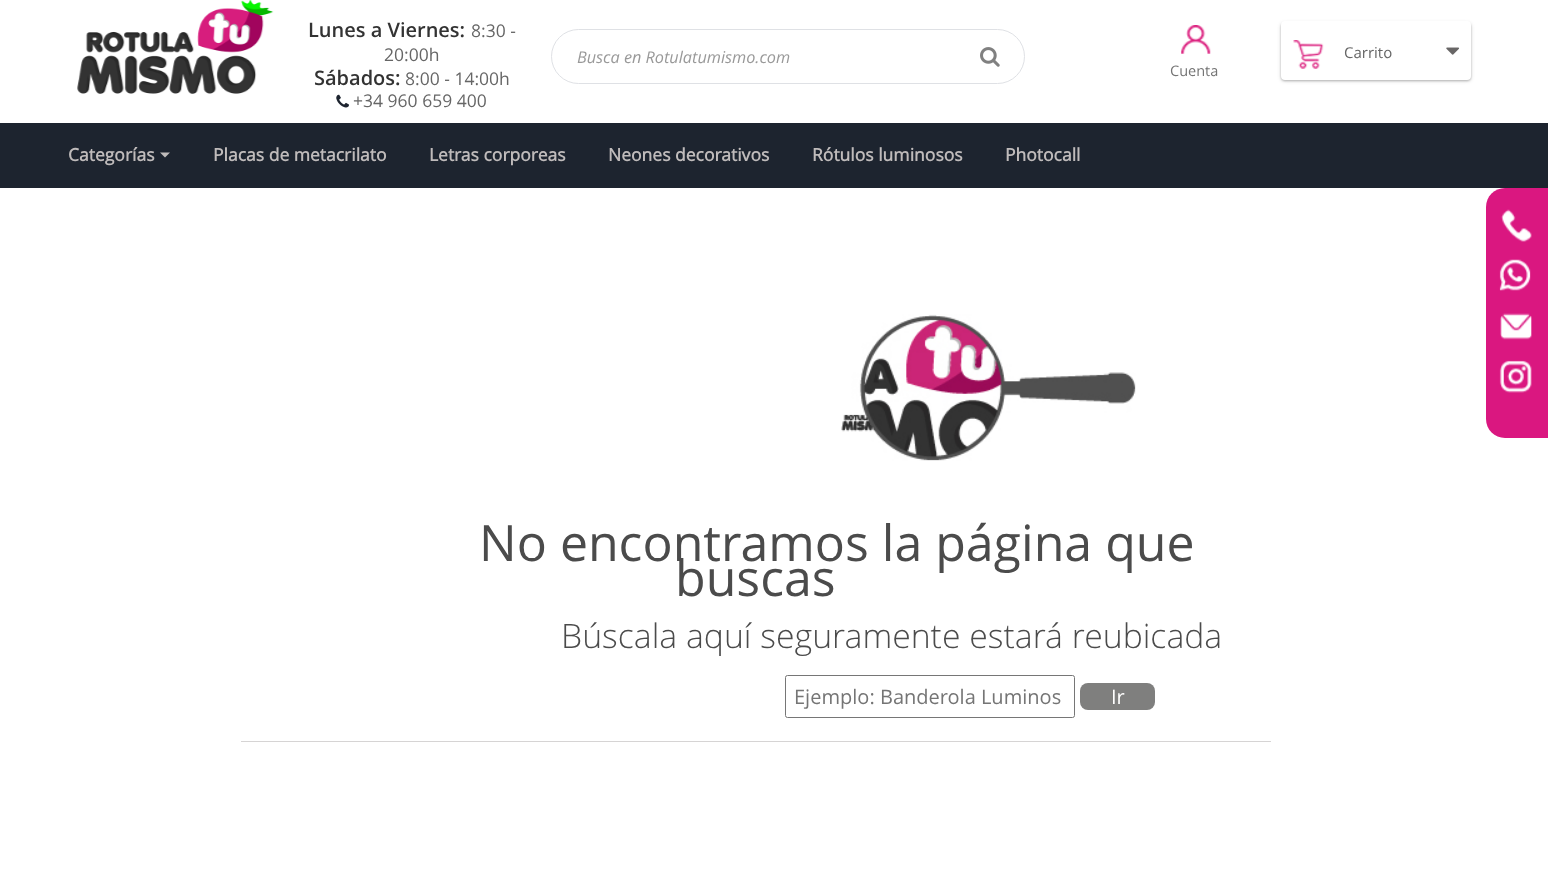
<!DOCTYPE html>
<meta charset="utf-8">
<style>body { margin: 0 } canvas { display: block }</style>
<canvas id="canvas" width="1548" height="873"></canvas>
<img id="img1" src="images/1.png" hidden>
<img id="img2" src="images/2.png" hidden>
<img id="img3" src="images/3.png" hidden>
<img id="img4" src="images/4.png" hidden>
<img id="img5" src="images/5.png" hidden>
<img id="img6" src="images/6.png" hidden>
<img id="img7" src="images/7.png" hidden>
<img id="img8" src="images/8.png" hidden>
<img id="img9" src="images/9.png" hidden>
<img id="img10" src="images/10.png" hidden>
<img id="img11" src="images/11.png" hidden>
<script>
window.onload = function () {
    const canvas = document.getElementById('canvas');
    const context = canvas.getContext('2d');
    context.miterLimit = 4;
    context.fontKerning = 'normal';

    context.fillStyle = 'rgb(255, 255, 255)';
    context.fillRect(0, 0, 1548, 873);
    context.drawImage(document.getElementById('img1'), 77, 0, 197, 94);
    context.drawImage(document.getElementById('img2'), 336, 94, 13, 14);
    context.beginPath();
    context.roundRect(551.5, 29.5, 473, 54, 27);
    context.strokeStyle = 'rgb(223, 225, 229)';
    context.stroke();
    context.drawImage(document.getElementById('img3'), 980, 47, 20, 20);
    context.fillStyle = 'rgba(0, 0, 0, 0.24)';
    context.filter = 'blur(1px)';
    context.beginPath();
    context.roundRect(1281, 23, 190, 58, 4);
    context.fill();
    context.filter = 'none';
    context.fillStyle = 'rgba(0, 0, 0, 0.12)';
    context.filter = 'blur(2px)';
    context.beginPath();
    context.roundRect(1281, 23, 190, 58, 4);
    context.fill();
    context.filter = 'none';
    context.fillStyle = 'rgb(255, 255, 255)';
    context.beginPath();
    context.roundRect(1281, 21, 190, 59, 4);
    context.fill();
    context.drawImage(document.getElementById('img4'), 1293, 40, 31, 29);
    context.drawImage(document.getElementById('img5'), 1446, 47, 14, 8);
    context.drawImage(document.getElementById('img6'), 1181, 25, 30, 29);
    context.fillStyle = 'rgb(29, 36, 47)';
    context.fillRect(0, 123, 1548, 65);
    context.fillStyle = 'rgb(191, 187, 187)';
    context.beginPath();
    context.moveTo(160, 152.5);
    context.lineTo(170, 152.5);
    context.lineTo(165, 157.5);
    context.closePath();
    context.fill();
    context.drawImage(document.getElementById('img7'), 841, 314, 295, 147);
    context.fillStyle = 'rgb(214, 212, 212)';
    context.fillRect(241, 741, 1030, 1);
    context.beginPath();
    context.roundRect(785.5, 675.5, 289, 42, 2);
    context.strokeStyle = 'rgb(118, 118, 118)';
    context.stroke();
    context.fillStyle = 'rgb(127, 127, 126)';
    context.beginPath();
    context.roundRect(1080, 683, 75, 27, 8);
    context.fill();
    context.fillStyle = 'rgb(218, 23, 128)';
    context.beginPath();
    context.moveTo(1505, 188);
    context.lineTo(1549, 188);
    context.lineTo(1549, 438);
    context.lineTo(1505, 438);
    context.bezierCurveTo(1494.5, 438, 1486, 429.5, 1486, 419);
    context.lineTo(1486, 207);
    context.bezierCurveTo(1486, 196.5, 1494.5, 188, 1505, 188);
    context.closePath();
    context.fill();
    context.drawImage(document.getElementById('img8'), 1501, 209, 31, 33);
    context.drawImage(document.getElementById('img9'), 1499, 259, 32, 32);
    context.drawImage(document.getElementById('img10'), 1500, 313, 32, 27);
    context.drawImage(document.getElementById('img11'), 1499, 360, 33, 33);
    context.font = '600 20px Open Sans';
    context.fillStyle = 'rgb(51, 51, 51)';
    context.fillText('Lunes a Viernes:', 308, 37);
    context.font = '17.5px "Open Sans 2"';
    context.fillStyle = 'rgb(102, 102, 102)';
    context.fillText('8:30 -', 471, 37);
    context.fillText('20:00h', 384, 61);
    context.font = '600 20px Open Sans';
    context.fillStyle = 'rgb(51, 51, 51)';
    context.fillText('Sábados:', 314, 85);
    context.font = '17.5px "Open Sans 2"';
    context.fillStyle = 'rgb(102, 102, 102)';
    context.fillText('8:00 - 14:00h', 405, 85);
    context.fillText('+34 960 659 400', 353, 107);
    context.font = 'italic 16.25px Open Sans';
    context.fillStyle = 'rgb(153, 153, 153)';
    context.fillText('Busca en Rotulatumismo.com', 577, 63);
    context.font = '15px Open Sans';
    context.fillStyle = 'rgb(102, 102, 102)';
    context.fillText('Carrito', 1344, 58);
    context.font = '14.5px Open Sans';
    context.fillStyle = 'rgb(117, 117, 117)';
    context.fillText('Cuenta', 1170, 76);
    context.font = 'bold 17.5px Open Sans';
    context.fillStyle = 'rgb(191, 187, 187)';
    context.fillText('Categorías', 68, 161);
    context.fillText('Placas de metacrilato', 213, 161);
    context.fillText('Letras corporeas', 429, 161);
    context.fillText('Neones decorativos', 608, 161);
    context.fillText('Rótulos luminosos', 812, 161);
    context.fillText('Photocall', 1005, 161);
    context.font = '50px Open Sans';
    context.fillStyle = 'rgb(75, 75, 75)';
    context.fillText('No encontramos la página que', 479, 561);
    context.fillText('buscas', 675, 596);
    context.font = '300 33.75px Open Sans';
    context.fillText('Búscala aquí seguramente estará reubicada', 561, 648);
    context.font = '20px "Open Sans 2"';
    context.fillStyle = 'rgb(117, 117, 117)';
    context.fillText('Ejemplo: Banderola Luminos', 794, 704);
    context.fillStyle = 'rgb(255, 255, 255)';
    context.fillText('Ir', 1111, 704);
};
</script>
